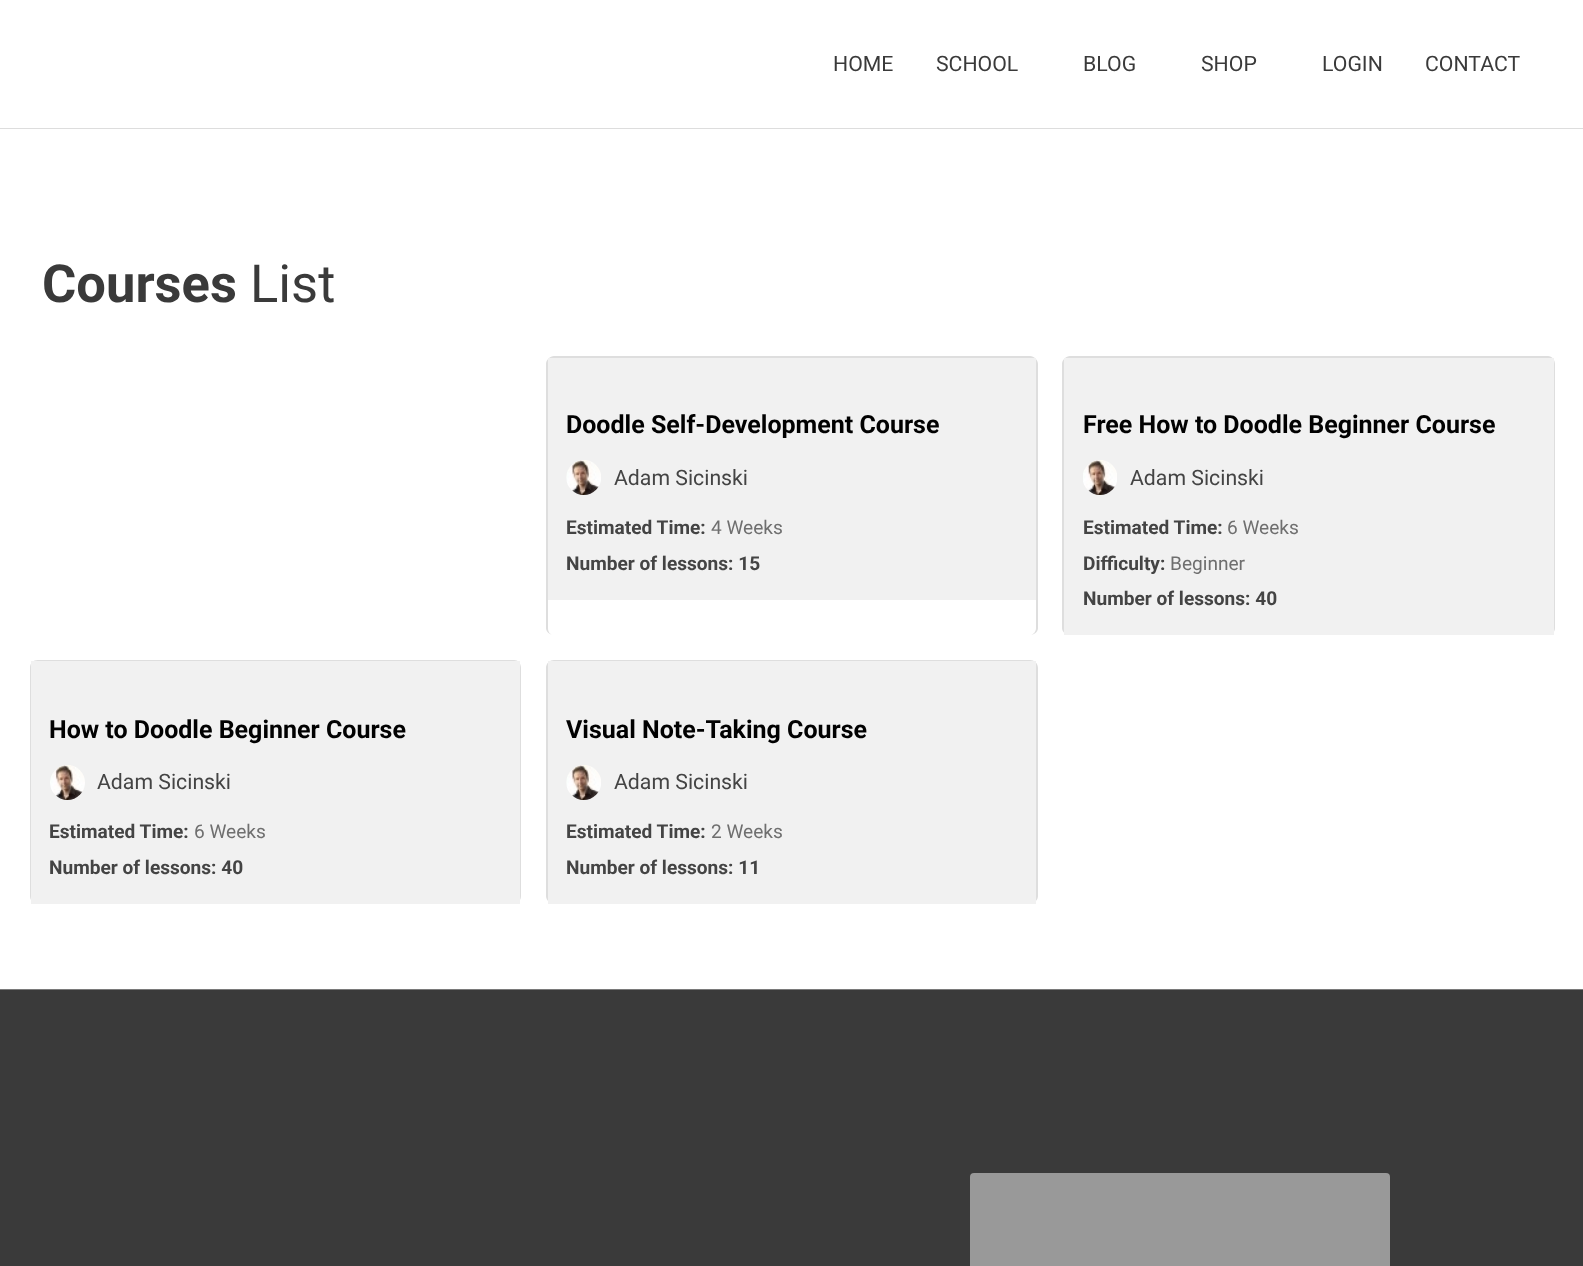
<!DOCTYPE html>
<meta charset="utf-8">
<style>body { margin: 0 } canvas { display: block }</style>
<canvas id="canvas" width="1583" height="1266"></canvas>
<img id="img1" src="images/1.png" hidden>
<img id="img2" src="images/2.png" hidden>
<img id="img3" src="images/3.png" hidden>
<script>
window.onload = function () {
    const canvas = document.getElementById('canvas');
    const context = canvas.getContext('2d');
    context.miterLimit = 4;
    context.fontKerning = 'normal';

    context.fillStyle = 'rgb(255, 255, 255)';
    context.fillRect(0, 0, 1583, 1266);
    context.fillStyle = 'rgb(221, 221, 221)';
    context.fillRect(0, 128, 1583, 1);
    context.fillStyle = 'rgb(222, 222, 222)';
    context.beginPath();
    context.moveTo(554, 356);
    context.lineTo(1030, 356);
    context.bezierCurveTo(1034, 356, 1038, 360, 1038, 364);
    context.lineTo(1038, 628);
    context.bezierCurveTo(1038, 632, 1034, 635, 1030, 635);
    context.lineTo(554, 635);
    context.bezierCurveTo(550, 635, 546, 632, 546, 628);
    context.lineTo(546, 364);
    context.bezierCurveTo(546, 360, 550, 356, 554, 356);
    context.closePath();
    context.moveTo(554, 358);
    context.lineTo(1030, 358);
    context.bezierCurveTo(1033, 358, 1036, 360, 1036, 364);
    context.lineTo(1036, 628);
    context.bezierCurveTo(1036, 632, 1033, 635, 1030, 635);
    context.lineTo(554, 635);
    context.bezierCurveTo(550, 635, 548, 632, 548, 628);
    context.lineTo(548, 364);
    context.bezierCurveTo(548, 360, 550, 358, 554, 358);
    context.closePath();
    context.fill('evenodd');
    context.fillStyle = 'rgb(241, 241, 241)';
    context.fillRect(548, 358, 488, 242);
    context.drawImage(document.getElementById('img1'), 566, 460, 35, 35);
    context.fillStyle = 'rgb(222, 222, 222)';
    context.beginPath();
    context.moveTo(1070, 356);
    context.lineTo(1548, 356);
    context.bezierCurveTo(1552, 356, 1555, 360, 1555, 364);
    context.lineTo(1555, 628);
    context.bezierCurveTo(1555, 632, 1552, 635, 1548, 635);
    context.lineTo(1070, 635);
    context.bezierCurveTo(1066, 635, 1062, 632, 1062, 628);
    context.lineTo(1062, 364);
    context.bezierCurveTo(1062, 360, 1066, 356, 1070, 356);
    context.closePath();
    context.moveTo(1070, 358);
    context.lineTo(1548, 358);
    context.bezierCurveTo(1551, 358, 1554, 360, 1554, 364);
    context.lineTo(1554, 628);
    context.bezierCurveTo(1554, 632, 1551, 635, 1548, 635);
    context.lineTo(1070, 635);
    context.bezierCurveTo(1067, 635, 1064, 632, 1064, 628);
    context.lineTo(1064, 364);
    context.bezierCurveTo(1064, 360, 1067, 358, 1070, 358);
    context.closePath();
    context.fill('evenodd');
    context.fillStyle = 'rgb(241, 241, 241)';
    context.fillRect(1064, 358, 490, 277);
    context.drawImage(document.getElementById('img2'), 1083, 460, 34, 35);
    context.fillStyle = 'rgb(222, 222, 222)';
    context.beginPath();
    context.moveTo(38, 660);
    context.lineTo(514, 660);
    context.bezierCurveTo(518, 660, 521, 663, 521, 668);
    context.lineTo(521, 896);
    context.bezierCurveTo(521, 900, 518, 904, 514, 904);
    context.lineTo(38, 904);
    context.bezierCurveTo(33, 904, 30, 900, 30, 896);
    context.lineTo(30, 668);
    context.bezierCurveTo(30, 663, 33, 660, 38, 660);
    context.closePath();
    context.moveTo(38, 661);
    context.lineTo(514, 661);
    context.bezierCurveTo(517, 661, 520, 664, 520, 668);
    context.lineTo(520, 896);
    context.bezierCurveTo(520, 900, 517, 904, 514, 904);
    context.lineTo(38, 904);
    context.bezierCurveTo(34, 904, 31, 900, 31, 896);
    context.lineTo(31, 668);
    context.bezierCurveTo(31, 664, 34, 661, 38, 661);
    context.closePath();
    context.fill('evenodd');
    context.fillStyle = 'rgb(241, 241, 241)';
    context.fillRect(31, 661, 489, 243);
    context.drawImage(document.getElementById('img3'), 50, 765, 35, 35);
    context.fillStyle = 'rgb(222, 222, 222)';
    context.beginPath();
    context.moveTo(554, 660);
    context.lineTo(1030, 660);
    context.bezierCurveTo(1034, 660, 1038, 663, 1038, 668);
    context.lineTo(1038, 896);
    context.bezierCurveTo(1038, 900, 1034, 904, 1030, 904);
    context.lineTo(554, 904);
    context.bezierCurveTo(550, 904, 546, 900, 546, 896);
    context.lineTo(546, 668);
    context.bezierCurveTo(546, 663, 550, 660, 554, 660);
    context.closePath();
    context.moveTo(554, 661);
    context.lineTo(1030, 661);
    context.bezierCurveTo(1033, 661, 1036, 664, 1036, 668);
    context.lineTo(1036, 896);
    context.bezierCurveTo(1036, 900, 1033, 904, 1030, 904);
    context.lineTo(554, 904);
    context.bezierCurveTo(550, 904, 548, 900, 548, 896);
    context.lineTo(548, 668);
    context.bezierCurveTo(548, 664, 550, 661, 554, 661);
    context.closePath();
    context.fill('evenodd');
    context.fillStyle = 'rgb(241, 241, 241)';
    context.fillRect(548, 661, 488, 243);
    context.drawImage(document.getElementById('img1'), 566, 765, 35, 35);
    context.fillStyle = 'rgb(122, 122, 122)';
    context.fillRect(0, 989, 1583, 1);
    context.fillStyle = 'rgb(58, 58, 58)';
    context.fillRect(0, 990, 1583, 276);
    context.fillStyle = 'rgb(153, 153, 153)';
    context.beginPath();
    context.roundRect(970, 1173, 420, 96, 4);
    context.fill();
    context.font = '21.25px Roboto';
    context.fillStyle = 'rgb(58, 58, 58)';
    context.fillText('HOME', 833, 71);
    context.fillText('SCHOOL', 936, 71);
    context.fillText('BLOG', 1083, 71);
    context.fillText('SHOP', 1201, 71);
    context.fillText('LOGIN', 1322, 71);
    context.fillText('CONTACT', 1425, 71);
    context.font = 'bold 52.5px Roboto';
    context.fillText('Courses', 42, 302);
    context.font = '52.5px Roboto';
    context.fillText('List', 250, 302);
    context.font = 'bold 25px Roboto';
    context.fillStyle = 'rgb(1, 1, 1)';
    context.fillText('Doodle Self-Development Course', 566, 433);
    context.font = '21.25px Roboto';
    context.fillStyle = 'rgb(68, 68, 68)';
    context.fillText('Adam Sicinski', 614, 485);
    context.font = 'bold 19.1px Roboto';
    context.fillText('Estimated Time:', 566, 534);
    context.font = '19.1px Roboto';
    context.fillStyle = 'rgb(111, 111, 111)';
    context.fillText('4 Weeks', 711, 534);
    context.font = 'bold 19.1px Roboto';
    context.fillStyle = 'rgb(68, 68, 68)';
    context.fillText('Number of lessons: 15', 566, 570);
    context.font = 'bold 25px Roboto';
    context.fillStyle = 'rgb(1, 1, 1)';
    context.fillText('Free How to Doodle Beginner Course', 1083, 433);
    context.font = '21.25px Roboto';
    context.fillStyle = 'rgb(68, 68, 68)';
    context.fillText('Adam Sicinski', 1130, 485);
    context.font = 'bold 19.1px Roboto';
    context.fillText('Estimated Time:', 1083, 534);
    context.font = '19.1px Roboto';
    context.fillStyle = 'rgb(111, 111, 111)';
    context.fillText('6 Weeks', 1227, 534);
    context.font = 'bold 19.1px Roboto';
    context.fillStyle = 'rgb(68, 68, 68)';
    context.fillText('Difficulty:', 1083, 570);
    context.font = '19.1px Roboto';
    context.fillStyle = 'rgb(111, 111, 111)';
    context.fillText('Beginner', 1170, 570);
    context.font = 'bold 19.1px Roboto';
    context.fillStyle = 'rgb(68, 68, 68)';
    context.fillText('Number of lessons: 40', 1083, 605);
    context.font = 'bold 25px Roboto';
    context.fillStyle = 'rgb(1, 1, 1)';
    context.fillText('How to Doodle Beginner Course', 49, 738);
    context.font = '21.25px Roboto';
    context.fillStyle = 'rgb(68, 68, 68)';
    context.fillText('Adam Sicinski', 97, 789);
    context.font = 'bold 19.1px Roboto';
    context.fillText('Estimated Time:', 49, 838);
    context.font = '19.1px Roboto';
    context.fillStyle = 'rgb(111, 111, 111)';
    context.fillText('6 Weeks', 194, 838);
    context.font = 'bold 19.1px Roboto';
    context.fillStyle = 'rgb(68, 68, 68)';
    context.fillText('Number of lessons: 40', 49, 874);
    context.font = 'bold 25px Roboto';
    context.fillStyle = 'rgb(1, 1, 1)';
    context.fillText('Visual Note-Taking Course', 566, 738);
    context.font = '21.25px Roboto';
    context.fillStyle = 'rgb(68, 68, 68)';
    context.fillText('Adam Sicinski', 614, 789);
    context.font = 'bold 19.1px Roboto';
    context.fillText('Estimated Time:', 566, 838);
    context.font = '19.1px Roboto';
    context.fillStyle = 'rgb(111, 111, 111)';
    context.fillText('2 Weeks', 711, 838);
    context.font = 'bold 19.1px Roboto';
    context.fillStyle = 'rgb(68, 68, 68)';
    context.fillText('Number of lessons: 11', 566, 874);
};
</script>
